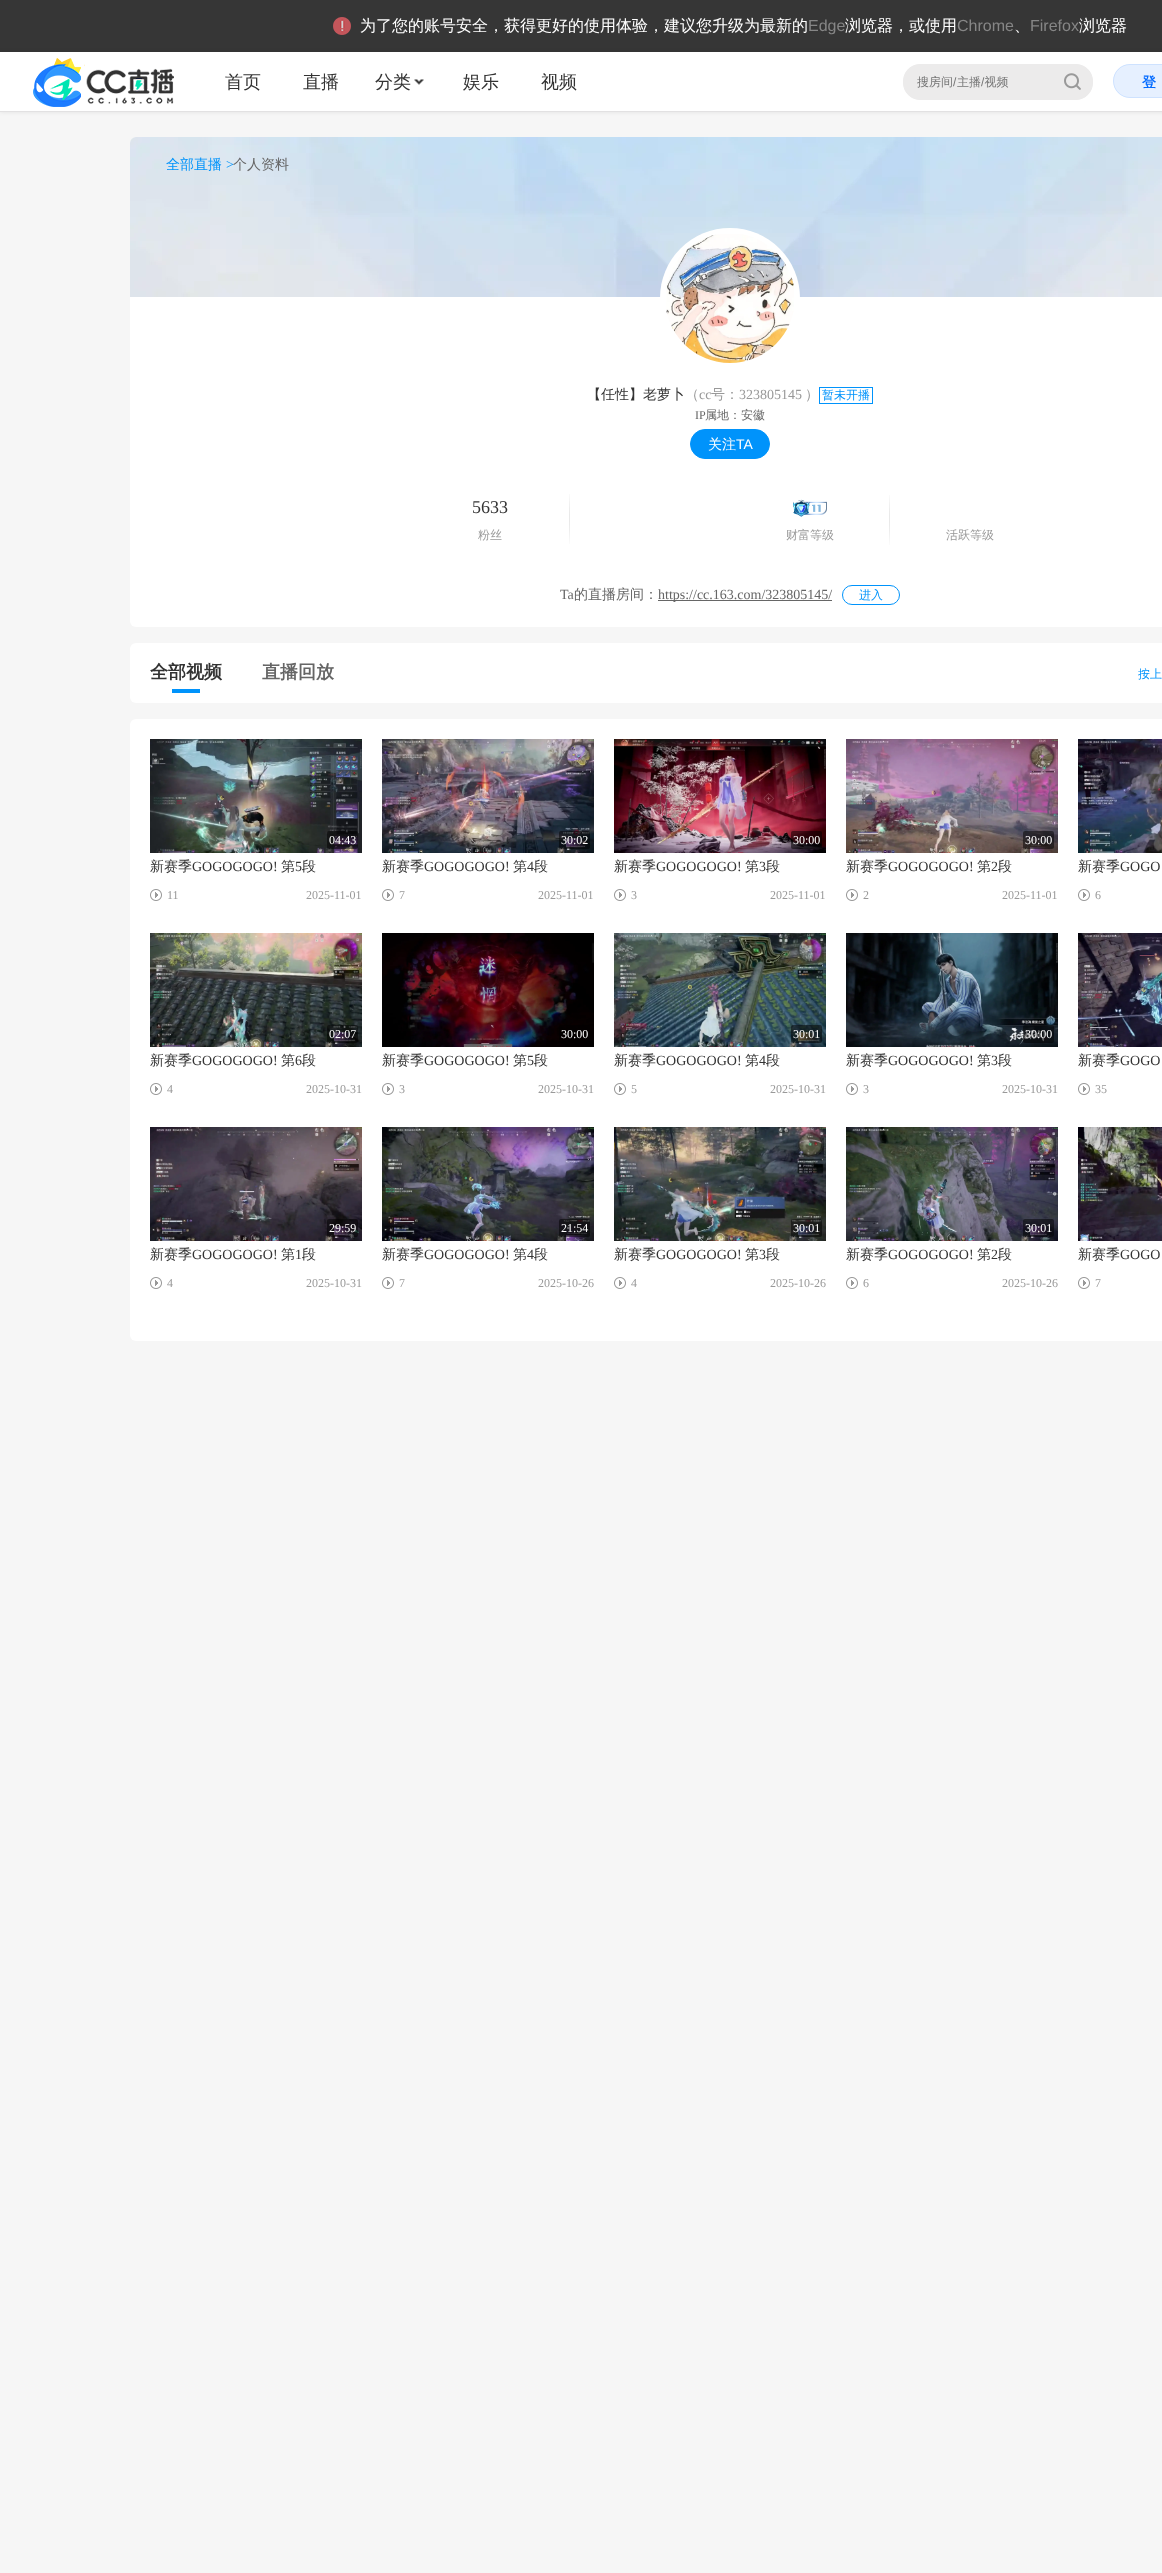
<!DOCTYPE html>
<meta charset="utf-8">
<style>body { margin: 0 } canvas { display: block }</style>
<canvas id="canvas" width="1162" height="2573"></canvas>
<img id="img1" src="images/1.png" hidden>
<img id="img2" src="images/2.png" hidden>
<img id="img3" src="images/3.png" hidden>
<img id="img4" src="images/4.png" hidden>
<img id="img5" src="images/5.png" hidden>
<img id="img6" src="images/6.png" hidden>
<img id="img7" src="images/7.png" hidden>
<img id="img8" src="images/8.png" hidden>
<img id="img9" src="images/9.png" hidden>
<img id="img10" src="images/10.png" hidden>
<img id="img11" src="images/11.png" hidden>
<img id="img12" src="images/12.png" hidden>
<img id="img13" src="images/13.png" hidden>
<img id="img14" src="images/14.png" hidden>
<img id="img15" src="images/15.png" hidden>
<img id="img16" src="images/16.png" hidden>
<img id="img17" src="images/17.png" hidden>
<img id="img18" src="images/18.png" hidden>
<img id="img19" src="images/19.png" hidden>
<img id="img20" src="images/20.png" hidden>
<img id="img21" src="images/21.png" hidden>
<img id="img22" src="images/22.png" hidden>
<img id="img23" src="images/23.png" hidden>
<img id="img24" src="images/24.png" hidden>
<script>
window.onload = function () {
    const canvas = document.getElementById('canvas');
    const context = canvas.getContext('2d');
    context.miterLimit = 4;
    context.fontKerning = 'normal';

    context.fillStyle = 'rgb(246, 246, 246)';
    context.fillRect(0, 0, 1162, 2573);
    context.fillStyle = 'rgb(54, 54, 54)';
    context.fillRect(0, 0, 1162, 52);
    context.drawImage(document.getElementById('img1'), 333, 17, 18, 18);
    context.fillStyle = 'rgba(0, 0, 0, 0.09)';
    context.filter = 'blur(2px)';
    context.beginPath();
    context.rect(0, 52, 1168, 60);
    context.fill();
    context.filter = 'none';
    context.fillStyle = 'rgb(255, 255, 255)';
    context.fillRect(0, 52, 1162, 59);
    context.fillStyle = 'rgb(226, 225, 226)';
    context.fillRect(0, 111, 1162, 1);
    context.drawImage(document.getElementById('img2'), 33, 58, 141, 49);
    context.drawImage(document.getElementById('img3'), 414, 79, 10, 6);
    context.fillStyle = 'rgb(236, 235, 235)';
    context.beginPath();
    context.roundRect(903.5, 64.5, 189, 35, 16.5);
    context.fill();
    context.strokeStyle = 'rgb(236, 235, 235)';
    context.stroke();
    context.drawImage(document.getElementById('img4'), 1064, 73, 17, 17);
    context.fillStyle = 'rgb(230, 240, 255)';
    context.beginPath();
    context.roundRect(1113, 64, 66, 34, 17);
    context.fill();
    context.beginPath();
    context.roundRect(1113.5, 64.5, 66, 33, 16.5);
    context.strokeStyle = 'rgba(0, 105, 255, 0.1)';
    context.stroke();
    context.fillStyle = 'rgb(255, 255, 255)';
    context.beginPath();
    context.roundRect(130, 137, 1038, 490, 6);
    context.fill();
    context.drawImage(document.getElementById('img5'), 130, 137, 1032, 160);
    context.beginPath();
    context.arc(730, 298, 70, 0, 2 * Math.PI);
    context.fill();
    context.drawImage(document.getElementById('img6'), 666, 234, 128, 129);
    context.strokeStyle = 'rgb(0, 147, 251)';
    context.strokeRect(819.5, 387.5, 53, 16);
    context.fillStyle = 'rgb(0, 147, 251)';
    context.beginPath();
    context.roundRect(690.5, 429.5, 79, 29, 14.5);
    context.fill();
    context.stroke();
    context.drawImage(document.getElementById('img7'), 569, 494, 1, 50);
    context.drawImage(document.getElementById('img7'), 889, 495, 1, 50);
    context.drawImage(document.getElementById('img8'), 793, 499, 34, 18);
    context.fillStyle = 'rgb(102, 102, 102)';
    context.fillRect(658, 600, 174, 1);
    context.beginPath();
    context.roundRect(842.5, 585.5, 57, 19, 9.5);
    context.stroke();
    context.fillStyle = 'rgb(255, 255, 255)';
    context.beginPath();
    context.roundRect(130, 643, 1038, 60, 6);
    context.fill();
    context.fillStyle = 'rgb(0, 147, 251)';
    context.fillRect(172, 689, 28, 4);
    context.fillStyle = 'rgb(255, 255, 255)';
    context.beginPath();
    context.roundRect(130, 719, 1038, 622, 6);
    context.fill();
    context.drawImage(document.getElementById('img9'), 150, 739, 212, 114);
    context.fillStyle = 'rgba(0, 0, 0, 0.5)';
    context.beginPath();
    context.roundRect(327, 831, 31, 18, 2);
    context.fill();
    context.drawImage(document.getElementById('img10'), 150, 889, 12, 12);
    context.drawImage(document.getElementById('img11'), 382, 739, 212, 114);
    context.beginPath();
    context.roundRect(559, 831, 31, 18, 2);
    context.fill();
    context.drawImage(document.getElementById('img10'), 382, 889, 12, 12);
    context.drawImage(document.getElementById('img12'), 614, 739, 212, 114);
    context.beginPath();
    context.roundRect(791, 831, 31, 18, 2);
    context.fill();
    context.drawImage(document.getElementById('img10'), 614, 889, 12, 12);
    context.drawImage(document.getElementById('img13'), 846, 739, 212, 114);
    context.beginPath();
    context.roundRect(1023, 831, 31, 18, 2);
    context.fill();
    context.drawImage(document.getElementById('img10'), 846, 889, 12, 12);
    context.drawImage(document.getElementById('img14'), 1078, 739, 84, 114);
    context.drawImage(document.getElementById('img10'), 1078, 889, 12, 12);
    context.drawImage(document.getElementById('img15'), 150, 933, 212, 114);
    context.beginPath();
    context.roundRect(327, 1025, 31, 18, 2);
    context.fill();
    context.drawImage(document.getElementById('img10'), 150, 1083, 12, 12);
    context.drawImage(document.getElementById('img16'), 382, 933, 212, 114);
    context.beginPath();
    context.roundRect(559, 1025, 31, 18, 2);
    context.fill();
    context.drawImage(document.getElementById('img10'), 382, 1083, 12, 12);
    context.drawImage(document.getElementById('img17'), 614, 933, 212, 114);
    context.beginPath();
    context.roundRect(791, 1025, 31, 18, 2);
    context.fill();
    context.drawImage(document.getElementById('img10'), 614, 1083, 12, 12);
    context.drawImage(document.getElementById('img18'), 846, 933, 212, 114);
    context.beginPath();
    context.roundRect(1023, 1025, 31, 18, 2);
    context.fill();
    context.drawImage(document.getElementById('img10'), 846, 1083, 12, 12);
    context.drawImage(document.getElementById('img19'), 1078, 933, 84, 114);
    context.drawImage(document.getElementById('img10'), 1078, 1083, 12, 12);
    context.drawImage(document.getElementById('img20'), 150, 1127, 212, 114);
    context.beginPath();
    context.roundRect(327, 1219, 31, 18, 2);
    context.fill();
    context.drawImage(document.getElementById('img10'), 150, 1277, 12, 12);
    context.drawImage(document.getElementById('img21'), 382, 1127, 212, 114);
    context.beginPath();
    context.roundRect(559, 1219, 31, 18, 2);
    context.fill();
    context.drawImage(document.getElementById('img10'), 382, 1277, 12, 12);
    context.drawImage(document.getElementById('img22'), 614, 1127, 212, 114);
    context.beginPath();
    context.roundRect(791, 1219, 31, 18, 2);
    context.fill();
    context.drawImage(document.getElementById('img10'), 614, 1277, 12, 12);
    context.drawImage(document.getElementById('img23'), 846, 1127, 212, 114);
    context.beginPath();
    context.roundRect(1023, 1219, 31, 18, 2);
    context.fill();
    context.drawImage(document.getElementById('img10'), 846, 1277, 12, 12);
    context.drawImage(document.getElementById('img24'), 1078, 1127, 84, 114);
    context.drawImage(document.getElementById('img10'), 1078, 1277, 12, 12);
    context.font = '500 16px WenQuanYi Zen Hei';
    context.fillStyle = 'rgb(255, 255, 255)';
    context.fillText('为了您的账号安全，获得更好的使用体验，建议您升级为最新的', 360, 31);
    context.font = '16px Liberation Sans';
    context.fillStyle = 'rgb(134, 134, 134)';
    context.fillText('Edge', 808, 31);
    context.font = '500 16px WenQuanYi Zen Hei';
    context.fillStyle = 'rgb(255, 255, 255)';
    context.fillText('浏览器，或使用', 845, 31);
    context.font = '16px Liberation Sans';
    context.fillStyle = 'rgb(134, 134, 134)';
    context.fillText('Chrome', 957, 31);
    context.font = '500 16px WenQuanYi Zen Hei';
    context.fillStyle = 'rgb(255, 255, 255)';
    context.fillText('、', 1014, 31);
    context.font = '16px Liberation Sans';
    context.fillStyle = 'rgb(134, 134, 134)';
    context.fillText('Firefox', 1030, 31);
    context.font = '500 16px WenQuanYi Zen Hei';
    context.fillStyle = 'rgb(255, 255, 255)';
    context.fillText('浏览器', 1079, 31);
    context.font = '500 18px WenQuanYi Zen Hei';
    context.fillStyle = 'rgb(51, 51, 51)';
    context.fillText('首页', 225, 88);
    context.fillText('直播', 303, 88);
    context.fillText('分类', 375, 88);
    context.fillText('娱乐', 463, 88);
    context.fillText('视频', 541, 88);
    context.font = '500 12px WenQuanYi Zen Hei';
    context.fillStyle = 'rgb(117, 117, 117)';
    context.fillText('搜房间', 917, 86);
    context.font = '12px Liberation Sans';
    context.fillText('/', 953, 86);
    context.font = '500 12px WenQuanYi Zen Hei';
    context.fillText('主播 视频', 957, 86);
    context.font = '12px Liberation Sans';
    context.fillText('/', 981, 86);
    context.font = 'bold 14px WenQuanYi Zen Hei';
    context.fillStyle = 'rgb(0, 105, 255)';
    context.fillText('登', 1142, 87);
    context.font = '500 14px WenQuanYi Zen Hei';
    context.fillStyle = 'rgb(0, 147, 251)';
    context.fillText('全部直播', 166, 169);
    context.font = '14px Liberation Serif';
    context.fillText('>', 226, 169);
    context.font = '500 14px WenQuanYi Zen Hei';
    context.fillStyle = 'rgb(102, 102, 102)';
    context.fillText('个人资料', 233, 169);
    context.fillStyle = 'rgb(51, 51, 51)';
    context.fillText('【任性】老萝卜', 587, 399);
    context.fillStyle = 'rgb(153, 153, 153)';
    context.fillText('（', 685, 399);
    context.font = '14px Liberation Serif';
    context.fillText('cc', 699, 399);
    context.font = '500 14px WenQuanYi Zen Hei';
    context.fillText('号：', 711, 399);
    context.font = '14px Liberation Serif';
    context.fillText('323805145', 739, 399);
    context.font = '500 14px WenQuanYi Zen Hei';
    context.fillText('）', 805, 399);
    context.font = '500 12px WenQuanYi Zen Hei';
    context.fillStyle = 'rgb(0, 147, 251)';
    context.fillText('暂未开播', 822, 399);
    context.font = '12px Liberation Serif';
    context.fillStyle = 'rgb(102, 102, 102)';
    context.fillText('IP', 695, 419);
    context.font = '500 12px WenQuanYi Zen Hei';
    context.fillText('属地：安徽', 705, 419);
    context.font = '500 14px WenQuanYi Zen Hei';
    context.fillStyle = 'rgb(255, 255, 255)';
    context.fillText('关注', 708, 449);
    context.font = '14px Liberation Sans';
    context.fillText('TA', 736, 449);
    context.font = '18px Liberation Serif';
    context.fillStyle = 'rgb(51, 51, 51)';
    context.fillText('5633', 472, 513);
    context.font = '500 12px WenQuanYi Zen Hei';
    context.fillStyle = 'rgb(153, 153, 153)';
    context.fillText('粉丝', 478, 539);
    context.fillText('财富等级', 786, 539);
    context.fillText('活跃等级', 946, 539);
    context.font = '14px Liberation Serif';
    context.fillStyle = 'rgb(102, 102, 102)';
    context.fillText('Ta', 560, 599);
    context.font = '500 14px WenQuanYi Zen Hei';
    context.fillText('的直播房间：', 574, 599);
    context.font = '14px Liberation Serif';
    context.fillText('https://cc.163.com/323805145/', 658, 599);
    context.font = '500 12px WenQuanYi Zen Hei';
    context.fillStyle = 'rgb(0, 147, 251)';
    context.fillText('进入', 859, 599);
    context.font = 'bold 18px WenQuanYi Zen Hei';
    context.fillStyle = 'rgb(51, 51, 51)';
    context.fillText('全部视频', 150, 678);
    context.fillStyle = 'rgb(102, 102, 102)';
    context.fillText('直播回放', 262, 678);
    context.font = '500 12px WenQuanYi Zen Hei';
    context.fillStyle = 'rgb(0, 147, 251)';
    context.fillText('按上', 1138, 678);
    context.font = '12px Liberation Serif';
    context.fillStyle = 'rgb(255, 255, 255)';
    context.fillText('04:43', 329, 844);
    context.font = '500 14px WenQuanYi Zen Hei';
    context.fillStyle = 'rgb(51, 51, 51)';
    context.fillText('新赛季', 150, 871);
    context.font = '14px Liberation Serif';
    context.fillText('GOGOGOGO!', 192, 871);
    context.font = '500 14px WenQuanYi Zen Hei';
    context.fillText('第', 281, 871);
    context.font = '14px Liberation Serif';
    context.fillText('5', 295, 871);
    context.font = '500 14px WenQuanYi Zen Hei';
    context.fillText('段', 302, 871);
    context.font = '12px Liberation Serif';
    context.fillStyle = 'rgb(153, 153, 153)';
    context.fillText('11', 167, 899);
    context.fillText('2025-11-01', 306, 899);
    context.fillStyle = 'rgb(255, 255, 255)';
    context.fillText('30:02', 561, 844);
    context.font = '500 14px WenQuanYi Zen Hei';
    context.fillStyle = 'rgb(51, 51, 51)';
    context.fillText('新赛季', 382, 871);
    context.font = '14px Liberation Serif';
    context.fillText('GOGOGOGO!', 424, 871);
    context.font = '500 14px WenQuanYi Zen Hei';
    context.fillText('第', 513, 871);
    context.font = '14px Liberation Serif';
    context.fillText('4', 527, 871);
    context.font = '500 14px WenQuanYi Zen Hei';
    context.fillText('段', 534, 871);
    context.font = '12px Liberation Serif';
    context.fillStyle = 'rgb(153, 153, 153)';
    context.fillText('7', 399, 899);
    context.fillText('2025-11-01', 538, 899);
    context.fillStyle = 'rgb(255, 255, 255)';
    context.fillText('30:00', 793, 844);
    context.font = '500 14px WenQuanYi Zen Hei';
    context.fillStyle = 'rgb(51, 51, 51)';
    context.fillText('新赛季', 614, 871);
    context.font = '14px Liberation Serif';
    context.fillText('GOGOGOGO!', 656, 871);
    context.font = '500 14px WenQuanYi Zen Hei';
    context.fillText('第', 745, 871);
    context.font = '14px Liberation Serif';
    context.fillText('3', 759, 871);
    context.font = '500 14px WenQuanYi Zen Hei';
    context.fillText('段', 766, 871);
    context.font = '12px Liberation Serif';
    context.fillStyle = 'rgb(153, 153, 153)';
    context.fillText('3', 631, 899);
    context.fillText('2025-11-01', 770, 899);
    context.fillStyle = 'rgb(255, 255, 255)';
    context.fillText('30:00', 1025, 844);
    context.font = '500 14px WenQuanYi Zen Hei';
    context.fillStyle = 'rgb(51, 51, 51)';
    context.fillText('新赛季', 846, 871);
    context.font = '14px Liberation Serif';
    context.fillText('GOGOGOGO!', 888, 871);
    context.font = '500 14px WenQuanYi Zen Hei';
    context.fillText('第', 977, 871);
    context.font = '14px Liberation Serif';
    context.fillText('2', 991, 871);
    context.font = '500 14px WenQuanYi Zen Hei';
    context.fillText('段', 998, 871);
    context.font = '12px Liberation Serif';
    context.fillStyle = 'rgb(153, 153, 153)';
    context.fillText('2', 863, 899);
    context.fillText('2025-11-01', 1002, 899);
    context.font = '500 14px WenQuanYi Zen Hei';
    context.fillStyle = 'rgb(51, 51, 51)';
    context.fillText('新赛季', 1078, 871);
    context.font = '14px Liberation Serif';
    context.fillText('GOGO', 1120, 871);
    context.font = '12px Liberation Serif';
    context.fillStyle = 'rgb(153, 153, 153)';
    context.fillText('6', 1095, 899);
    context.fillStyle = 'rgb(255, 255, 255)';
    context.fillText('02:07', 329, 1038);
    context.font = '500 14px WenQuanYi Zen Hei';
    context.fillStyle = 'rgb(51, 51, 51)';
    context.fillText('新赛季', 150, 1065);
    context.font = '14px Liberation Serif';
    context.fillText('GOGOGOGO!', 192, 1065);
    context.font = '500 14px WenQuanYi Zen Hei';
    context.fillText('第', 281, 1065);
    context.font = '14px Liberation Serif';
    context.fillText('6', 295, 1065);
    context.font = '500 14px WenQuanYi Zen Hei';
    context.fillText('段', 302, 1065);
    context.font = '12px Liberation Serif';
    context.fillStyle = 'rgb(153, 153, 153)';
    context.fillText('4', 167, 1093);
    context.fillText('2025-10-31', 306, 1093);
    context.fillStyle = 'rgb(255, 255, 255)';
    context.fillText('30:00', 561, 1038);
    context.font = '500 14px WenQuanYi Zen Hei';
    context.fillStyle = 'rgb(51, 51, 51)';
    context.fillText('新赛季', 382, 1065);
    context.font = '14px Liberation Serif';
    context.fillText('GOGOGOGO!', 424, 1065);
    context.font = '500 14px WenQuanYi Zen Hei';
    context.fillText('第', 513, 1065);
    context.font = '14px Liberation Serif';
    context.fillText('5', 527, 1065);
    context.font = '500 14px WenQuanYi Zen Hei';
    context.fillText('段', 534, 1065);
    context.font = '12px Liberation Serif';
    context.fillStyle = 'rgb(153, 153, 153)';
    context.fillText('3', 399, 1093);
    context.fillText('2025-10-31', 538, 1093);
    context.fillStyle = 'rgb(255, 255, 255)';
    context.fillText('30:01', 793, 1038);
    context.font = '500 14px WenQuanYi Zen Hei';
    context.fillStyle = 'rgb(51, 51, 51)';
    context.fillText('新赛季', 614, 1065);
    context.font = '14px Liberation Serif';
    context.fillText('GOGOGOGO!', 656, 1065);
    context.font = '500 14px WenQuanYi Zen Hei';
    context.fillText('第', 745, 1065);
    context.font = '14px Liberation Serif';
    context.fillText('4', 759, 1065);
    context.font = '500 14px WenQuanYi Zen Hei';
    context.fillText('段', 766, 1065);
    context.font = '12px Liberation Serif';
    context.fillStyle = 'rgb(153, 153, 153)';
    context.fillText('5', 631, 1093);
    context.fillText('2025-10-31', 770, 1093);
    context.fillStyle = 'rgb(255, 255, 255)';
    context.fillText('30:00', 1025, 1038);
    context.font = '500 14px WenQuanYi Zen Hei';
    context.fillStyle = 'rgb(51, 51, 51)';
    context.fillText('新赛季', 846, 1065);
    context.font = '14px Liberation Serif';
    context.fillText('GOGOGOGO!', 888, 1065);
    context.font = '500 14px WenQuanYi Zen Hei';
    context.fillText('第', 977, 1065);
    context.font = '14px Liberation Serif';
    context.fillText('3', 991, 1065);
    context.font = '500 14px WenQuanYi Zen Hei';
    context.fillText('段', 998, 1065);
    context.font = '12px Liberation Serif';
    context.fillStyle = 'rgb(153, 153, 153)';
    context.fillText('3', 863, 1093);
    context.fillText('2025-10-31', 1002, 1093);
    context.font = '500 14px WenQuanYi Zen Hei';
    context.fillStyle = 'rgb(51, 51, 51)';
    context.fillText('新赛季', 1078, 1065);
    context.font = '14px Liberation Serif';
    context.fillText('GOGO', 1120, 1065);
    context.font = '12px Liberation Serif';
    context.fillStyle = 'rgb(153, 153, 153)';
    context.fillText('35', 1095, 1093);
    context.fillStyle = 'rgb(255, 255, 255)';
    context.fillText('29:59', 329, 1232);
    context.font = '500 14px WenQuanYi Zen Hei';
    context.fillStyle = 'rgb(51, 51, 51)';
    context.fillText('新赛季', 150, 1259);
    context.font = '14px Liberation Serif';
    context.fillText('GOGOGOGO!', 192, 1259);
    context.font = '500 14px WenQuanYi Zen Hei';
    context.fillText('第', 281, 1259);
    context.font = '14px Liberation Serif';
    context.fillText('1', 295, 1259);
    context.font = '500 14px WenQuanYi Zen Hei';
    context.fillText('段', 302, 1259);
    context.font = '12px Liberation Serif';
    context.fillStyle = 'rgb(153, 153, 153)';
    context.fillText('4', 167, 1287);
    context.fillText('2025-10-31', 306, 1287);
    context.fillStyle = 'rgb(255, 255, 255)';
    context.fillText('21:54', 561, 1232);
    context.font = '500 14px WenQuanYi Zen Hei';
    context.fillStyle = 'rgb(51, 51, 51)';
    context.fillText('新赛季', 382, 1259);
    context.font = '14px Liberation Serif';
    context.fillText('GOGOGOGO!', 424, 1259);
    context.font = '500 14px WenQuanYi Zen Hei';
    context.fillText('第', 513, 1259);
    context.font = '14px Liberation Serif';
    context.fillText('4', 527, 1259);
    context.font = '500 14px WenQuanYi Zen Hei';
    context.fillText('段', 534, 1259);
    context.font = '12px Liberation Serif';
    context.fillStyle = 'rgb(153, 153, 153)';
    context.fillText('7', 399, 1287);
    context.fillText('2025-10-26', 538, 1287);
    context.fillStyle = 'rgb(255, 255, 255)';
    context.fillText('30:01', 793, 1232);
    context.font = '500 14px WenQuanYi Zen Hei';
    context.fillStyle = 'rgb(51, 51, 51)';
    context.fillText('新赛季', 614, 1259);
    context.font = '14px Liberation Serif';
    context.fillText('GOGOGOGO!', 656, 1259);
    context.font = '500 14px WenQuanYi Zen Hei';
    context.fillText('第', 745, 1259);
    context.font = '14px Liberation Serif';
    context.fillText('3', 759, 1259);
    context.font = '500 14px WenQuanYi Zen Hei';
    context.fillText('段', 766, 1259);
    context.font = '12px Liberation Serif';
    context.fillStyle = 'rgb(153, 153, 153)';
    context.fillText('4', 631, 1287);
    context.fillText('2025-10-26', 770, 1287);
    context.fillStyle = 'rgb(255, 255, 255)';
    context.fillText('30:01', 1025, 1232);
    context.font = '500 14px WenQuanYi Zen Hei';
    context.fillStyle = 'rgb(51, 51, 51)';
    context.fillText('新赛季', 846, 1259);
    context.font = '14px Liberation Serif';
    context.fillText('GOGOGOGO!', 888, 1259);
    context.font = '500 14px WenQuanYi Zen Hei';
    context.fillText('第', 977, 1259);
    context.font = '14px Liberation Serif';
    context.fillText('2', 991, 1259);
    context.font = '500 14px WenQuanYi Zen Hei';
    context.fillText('段', 998, 1259);
    context.font = '12px Liberation Serif';
    context.fillStyle = 'rgb(153, 153, 153)';
    context.fillText('6', 863, 1287);
    context.fillText('2025-10-26', 1002, 1287);
    context.font = '500 14px WenQuanYi Zen Hei';
    context.fillStyle = 'rgb(51, 51, 51)';
    context.fillText('新赛季', 1078, 1259);
    context.font = '14px Liberation Serif';
    context.fillText('GOGO', 1120, 1259);
    context.font = '12px Liberation Serif';
    context.fillStyle = 'rgb(153, 153, 153)';
    context.fillText('7', 1095, 1287);
};
</script>
